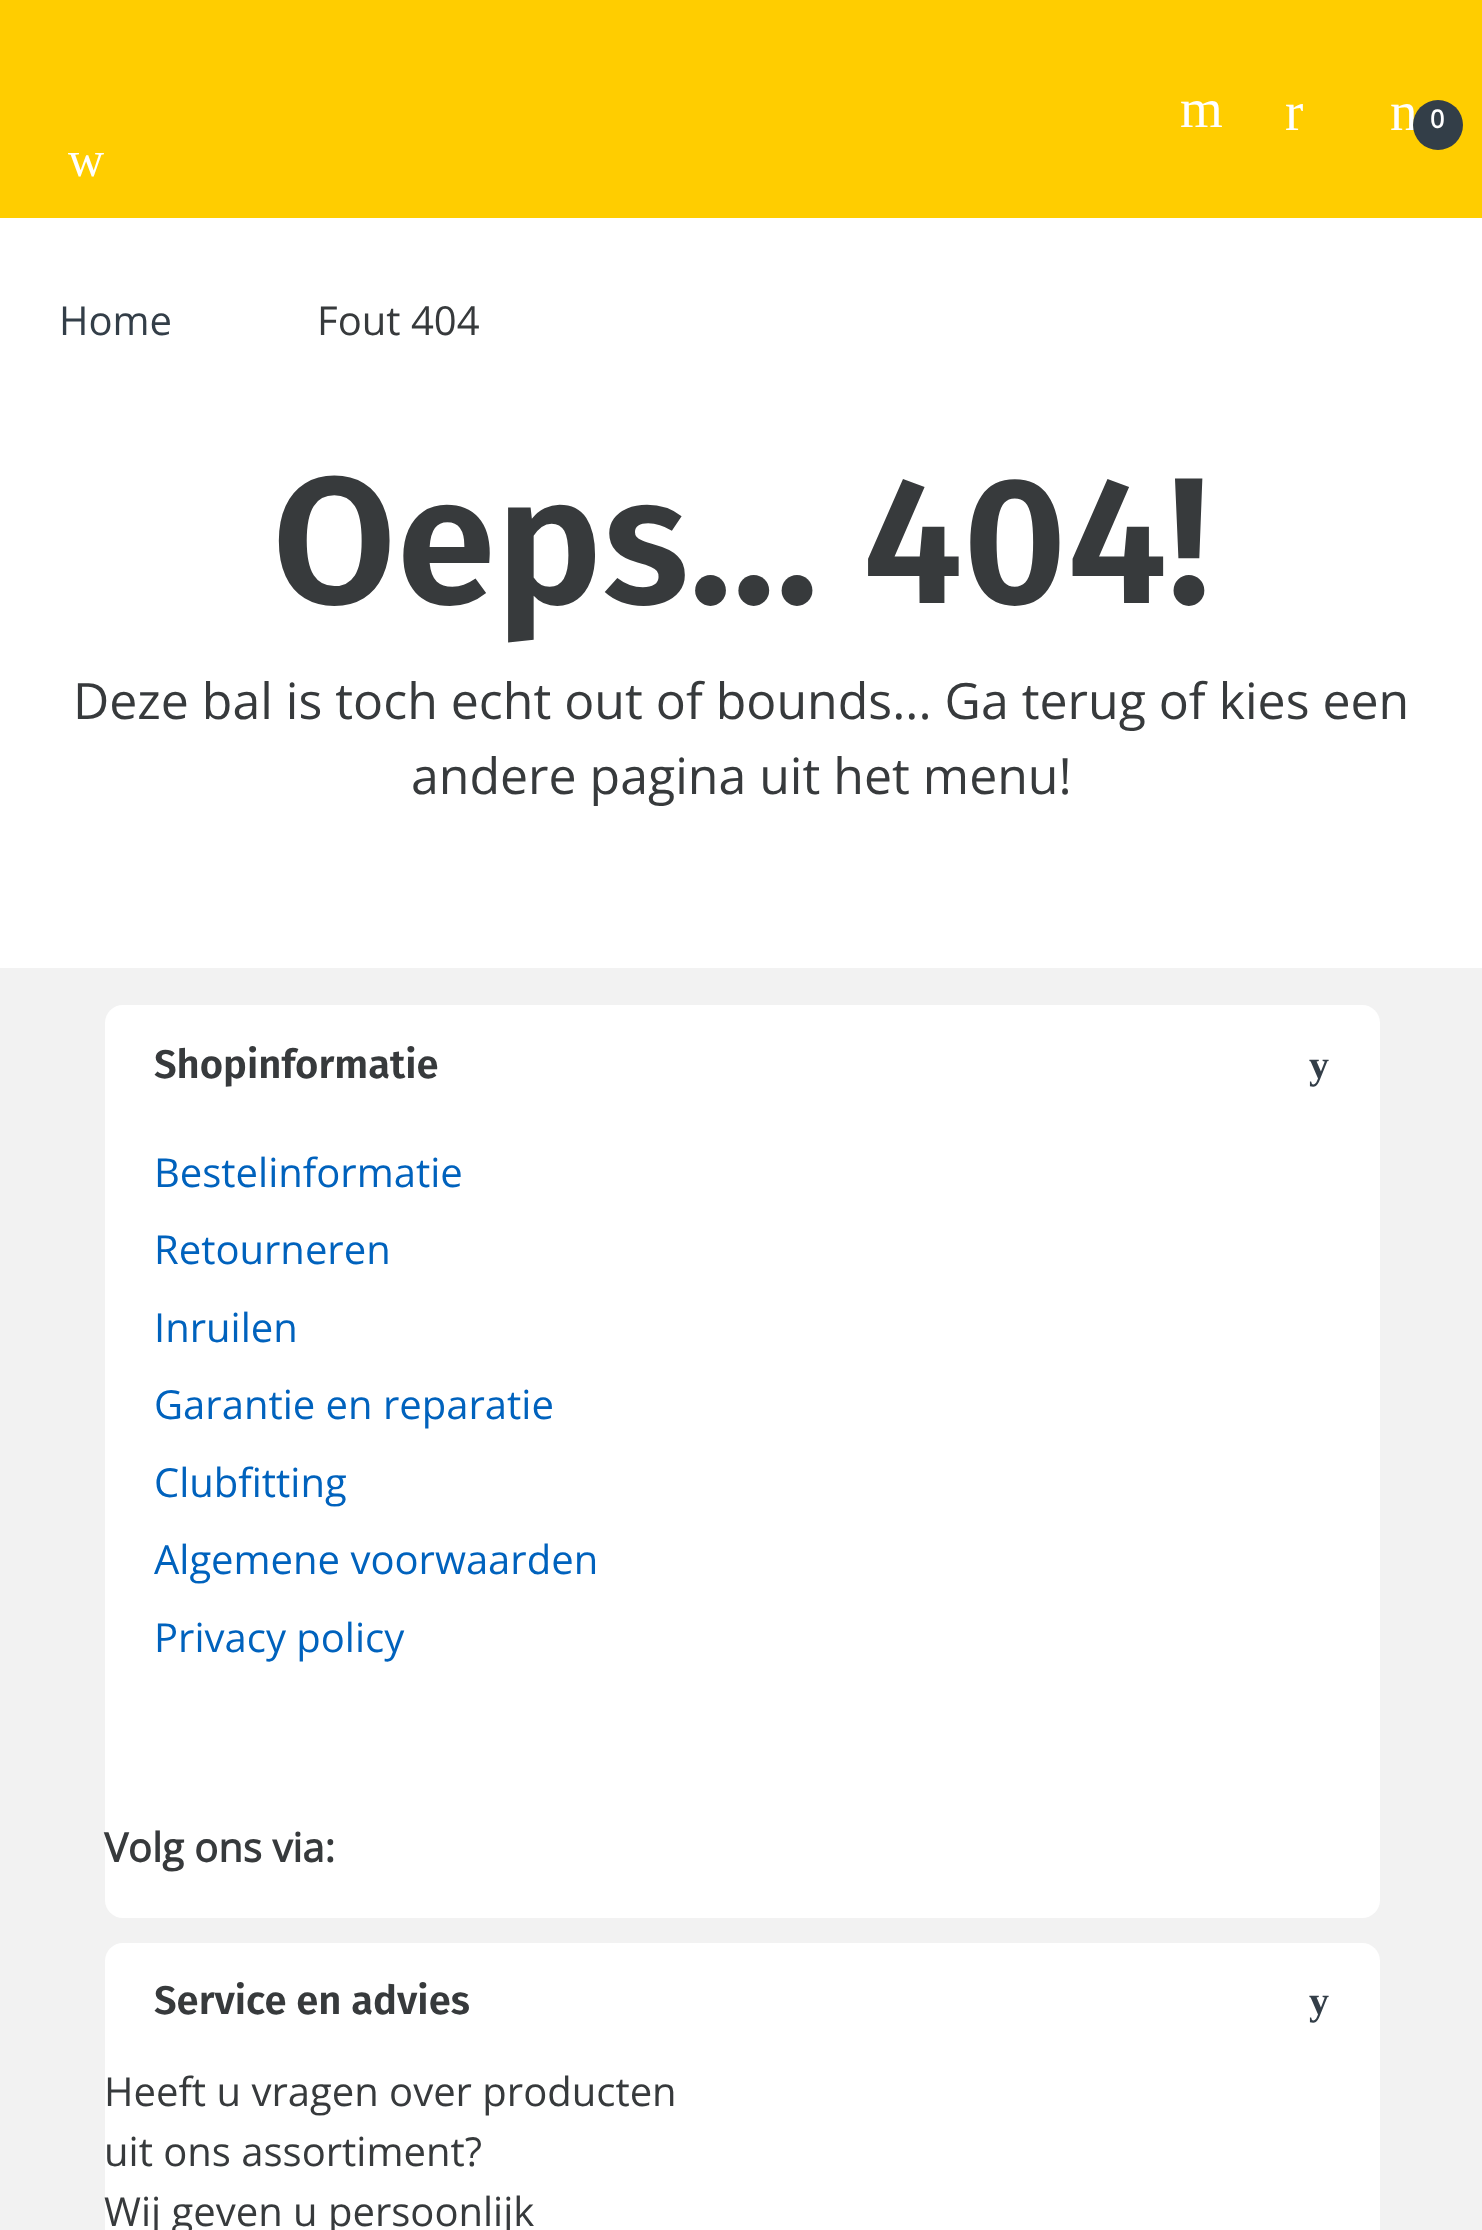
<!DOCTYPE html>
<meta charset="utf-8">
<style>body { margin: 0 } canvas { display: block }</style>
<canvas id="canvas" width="1482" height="2230"></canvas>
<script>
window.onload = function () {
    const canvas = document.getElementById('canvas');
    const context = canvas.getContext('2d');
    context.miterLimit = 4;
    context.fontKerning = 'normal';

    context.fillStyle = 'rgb(255, 255, 255)';
    context.fillRect(0, 0, 1482, 2230);
    context.fillStyle = 'rgb(255, 205, 0)';
    context.fillRect(0, 0, 1482, 218);
    context.fillStyle = 'rgb(242, 242, 242)';
    context.fillRect(0, 968, 1482, 1262);
    context.fillStyle = 'rgb(255, 255, 255)';
    context.beginPath();
    context.roundRect(105, 1005, 1275, 913, 18);
    context.fill();
    context.beginPath();
    context.roundRect(105, 1943, 1275, 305, 18);
    context.fill();
    context.font = '55px Liberation Serif';
    context.fillText('m', 1180, 127);
    context.fillText('r', 1285, 130);
    context.fillText('n', 1390, 130);
    context.fillStyle = 'rgb(51, 62, 72)';
    context.beginPath();
    context.arc(1438, 125, 25, 0, 2 * Math.PI);
    context.fill();
    context.font = 'bold 25px Open Sans';
    context.fillStyle = 'rgb(255, 255, 255)';
    context.fillText('0', 1430, 128);
    context.font = '50px Liberation Serif';
    context.fillText('w', 68, 176);
    context.font = '40px Open Sans';
    context.fillStyle = 'rgb(51, 62, 72)';
    context.fillText('Home', 59, 335);
    context.fillStyle = 'rgb(55, 58, 60)';
    context.fillText('Fout 404', 317, 335);
    context.font = '600 180px Fira Sans';
    context.fillText('Oeps... 404!', 272, 603);
    context.font = '50px Open Sans';
    context.fillText('Deze bal is toch echt out of bounds... Ga terug of kies een', 73, 719);
    context.fillText('andere pagina uit het menu!', 411, 794);
    context.font = '600 40px Fira Sans';
    context.fillText('Shopinformatie', 154, 1078);
    context.font = 'bold 40px Liberation Serif';
    context.fillStyle = 'rgb(51, 62, 72)';
    context.fillText('y', 1309, 1078);
    context.font = '40px Open Sans';
    context.fillStyle = 'rgb(0, 98, 189)';
    context.fillText('Bestelinformatie', 154, 1187);
    context.fillText('Retourneren', 154, 1264);
    context.fillText('Inruilen', 154, 1342);
    context.fillText('Garantie en reparatie', 154, 1419);
    context.fillText('Clubfitting', 154, 1497);
    context.fillText('Algemene voorwaarden', 154, 1574);
    context.fillText('Privacy policy', 154, 1652);
    context.font = 'bold 40px Open Sans';
    context.fillStyle = 'rgb(55, 58, 60)';
    context.fillText('Volg ons via:', 104, 1862);
    context.font = '600 40px Fira Sans';
    context.fillText('Service en advies', 154, 2014);
    context.font = 'bold 40px Liberation Serif';
    context.fillStyle = 'rgb(51, 62, 72)';
    context.fillText('y', 1309, 2014);
    context.font = '40px Open Sans';
    context.fillStyle = 'rgb(55, 58, 60)';
    context.fillText('Heeft u vragen over producten', 104, 2106);
    context.fillText('uit ons assortiment?', 104, 2166);
    context.fillText('Wij geven u persoonlijk', 104, 2226);
};
</script>
